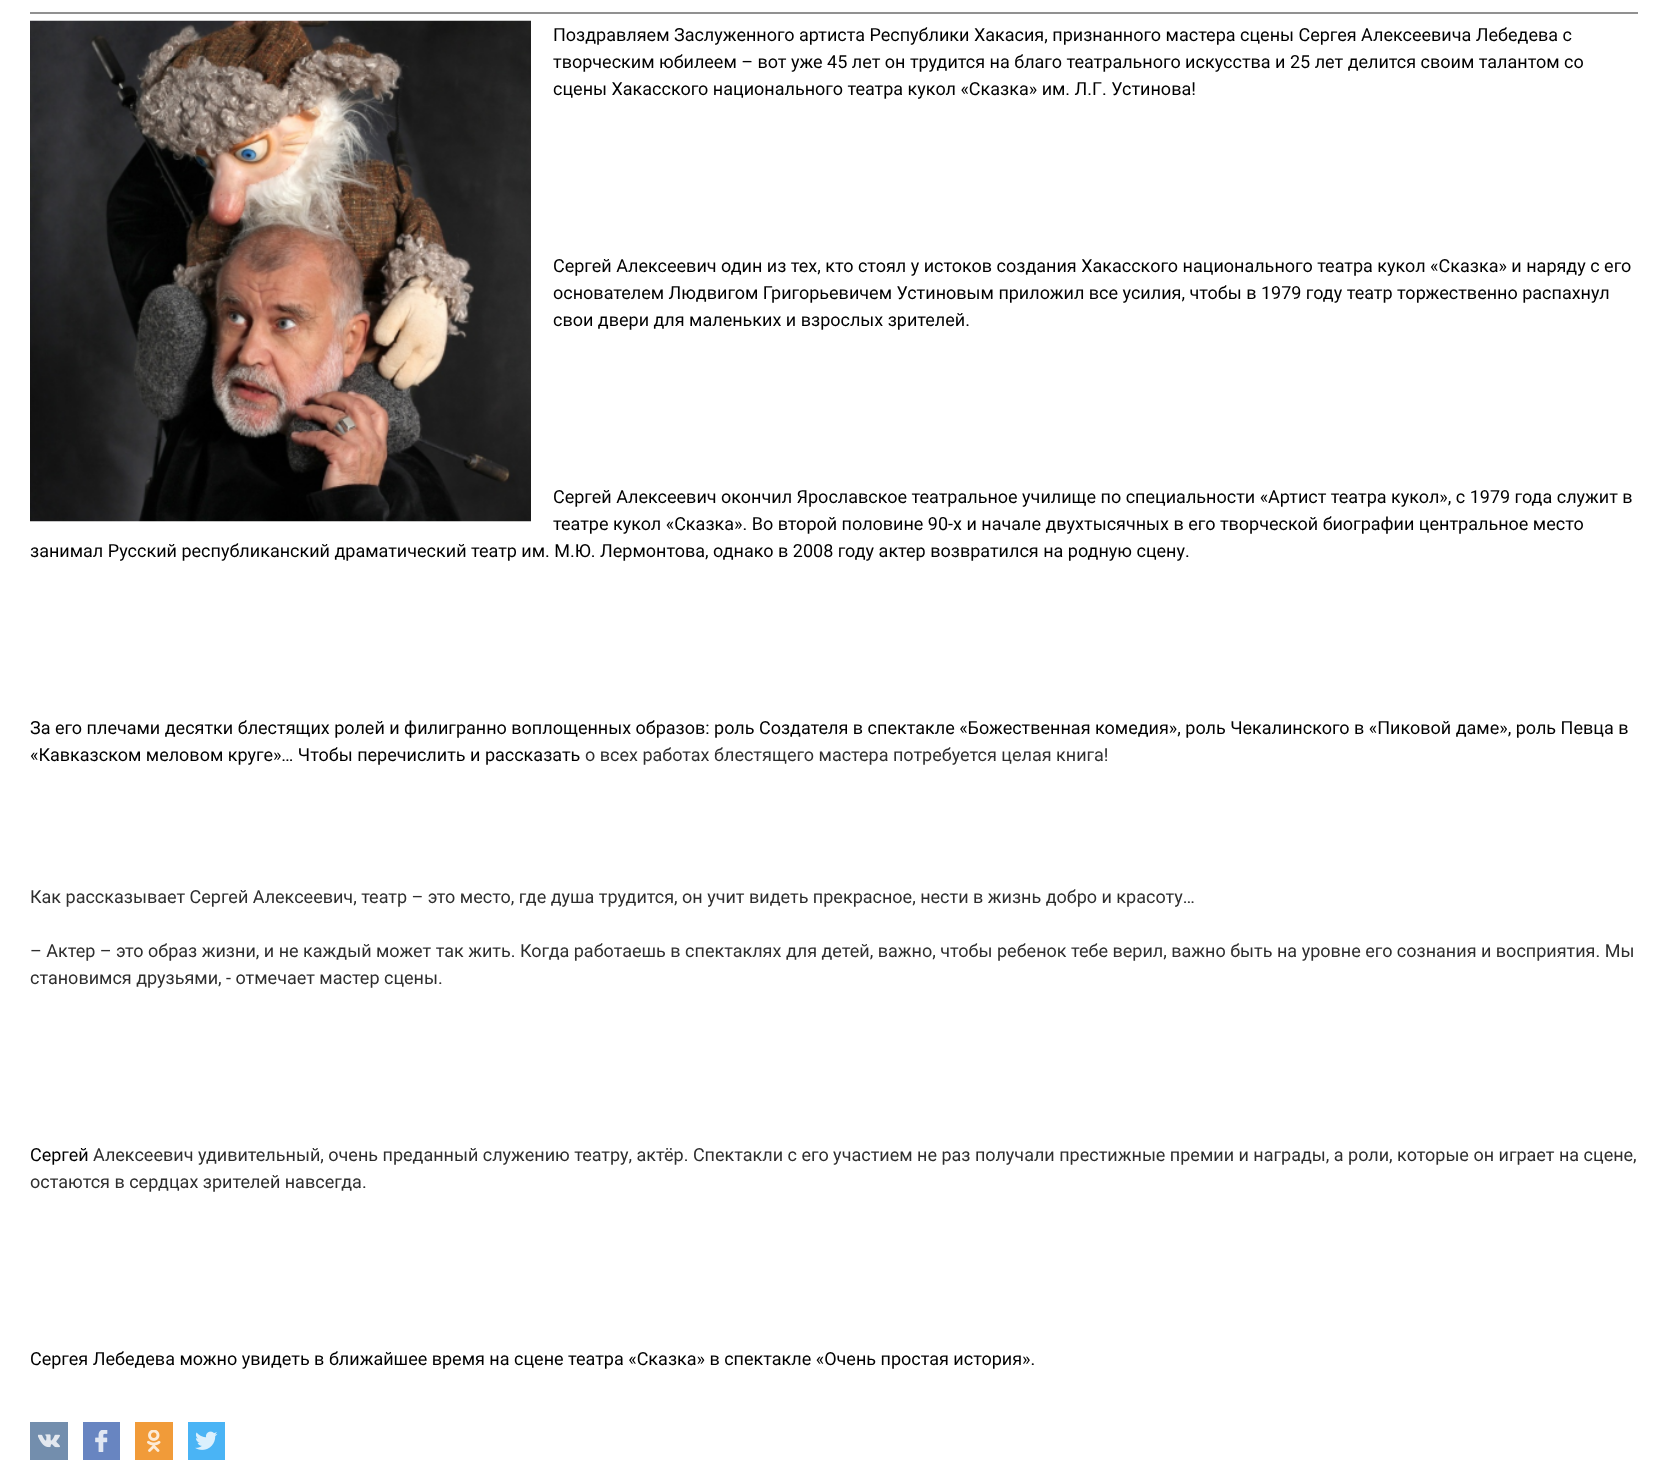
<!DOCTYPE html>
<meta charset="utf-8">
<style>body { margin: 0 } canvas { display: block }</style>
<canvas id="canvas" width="1667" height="1468"></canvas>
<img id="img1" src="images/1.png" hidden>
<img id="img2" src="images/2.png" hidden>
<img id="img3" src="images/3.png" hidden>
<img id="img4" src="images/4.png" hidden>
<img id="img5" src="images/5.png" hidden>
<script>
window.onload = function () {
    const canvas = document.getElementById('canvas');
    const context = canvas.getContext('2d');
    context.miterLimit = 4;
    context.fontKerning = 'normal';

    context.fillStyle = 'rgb(255, 255, 255)';
    context.fillRect(0, 0, 1667, 1468);
    context.fillStyle = 'rgb(145, 145, 145)';
    context.fillRect(30, 12, 1608, 2);
    context.drawImage(document.getElementById('img1'), 30, 20, 501, 502);
    context.fillStyle = 'rgb(115, 142, 173)';
    context.fillRect(30, 1422, 38, 38);
    context.drawImage(document.getElementById('img2'), 38, 1434, 22, 14);
    context.fillStyle = 'rgb(104, 133, 193)';
    context.fillRect(83, 1422, 37, 38);
    context.drawImage(document.getElementById('img3'), 95, 1430, 13, 22);
    context.fillStyle = 'rgb(241, 155, 57)';
    context.fillRect(135, 1422, 38, 38);
    context.drawImage(document.getElementById('img4'), 147, 1430, 14, 22);
    context.fillStyle = 'rgb(74, 180, 245)';
    context.fillRect(188, 1422, 37, 38);
    context.drawImage(document.getElementById('img5'), 195, 1431, 23, 19);
    context.font = '18px Roboto';
    context.fillStyle = 'rgb(0, 0, 0)';
    context.fillText('Поздравляем Заслуженного артиста Республики Хакасия, признанного мастера сцены Сергея Алексеевича Лебедева с', 553, 41);
    context.fillText('творческим юбилеем – вот уже 45 лет он трудится на благо театрального искусства и 25 лет делится своим талантом со', 553, 68);
    context.fillText('сцены Хакасского национального театра кукол «Сказка» им. Л.Г. Устинова!', 553, 95);
    context.fillText('Сергей Алексеевич один из тех, кто стоял у истоков создания Хакасского национального театра кукол «Сказка» и наряду с его', 553, 272);
    context.fillText('основателем Людвигом Григорьевичем Устиновым приложил все усилия, чтобы в 1979 году театр торжественно распахнул', 553, 299);
    context.fillText('свои двери для маленьких и взрослых зрителей.', 553, 326);
    context.fillText('Сергей Алексеевич окончил Ярославское театральное училище по специальности «Артист театра кукол», с 1979 года служит в', 553, 503);
    context.fillText('театре кукол «Сказка». Во второй половине 90-х и начале двухтысячных в его творческой биографии центральное место', 553, 530);
    context.fillText('занимал Русский республиканский драматический театр им. М.Ю. Лермонтова, однако в 2008 году актер возвратился на родную сцену.', 30, 557);
    context.fillText('За его плечами десятки блестящих ролей и филигранно воплощенных образов: роль Создателя в спектакле «Божественная комедия», роль Чекалинского в «Пиковой даме», роль Певца в', 30, 734);
    context.fillText('«Кавказском меловом круге»… Чтобы перечислить и рассказать', 30, 761);
    context.fillStyle = 'rgb(46, 46, 46)';
    context.fillText('о всех работах блестящего мастера потребуется целая книга!', 585, 761);
    context.fillText('Как рассказывает Сергей Алексеевич, театр – это место, где душа трудится, он учит видеть прекрасное, нести в жизнь добро и красоту…', 30, 903);
    context.fillText('– Актер – это образ жизни, и не каждый может так жить. Когда работаешь в спектаклях для детей, важно, чтобы ребенок тебе верил, важно быть на уровне его сознания и восприятия. Мы', 30, 957);
    context.fillText('становимся друзьями, - отмечает мастер сцены.', 30, 984);
    context.fillStyle = 'rgb(0, 0, 0)';
    context.fillText('Сергей', 30, 1161);
    context.fillStyle = 'rgb(46, 46, 46)';
    context.fillText('Алексеевич удивительный, очень преданный служению театру, актёр. Спектакли с его участием не раз получали престижные премии и награды, а роли, которые он играет на сцене,', 93, 1161);
    context.fillText('остаются в сердцах зрителей навсегда.', 30, 1188);
    context.fillStyle = 'rgb(0, 0, 0)';
    context.fillText('Сергея Лебедева можно увидеть в ближайшее время на сцене театра «Сказка» в спектакле «Очень простая история».', 30, 1365);
};
</script>
